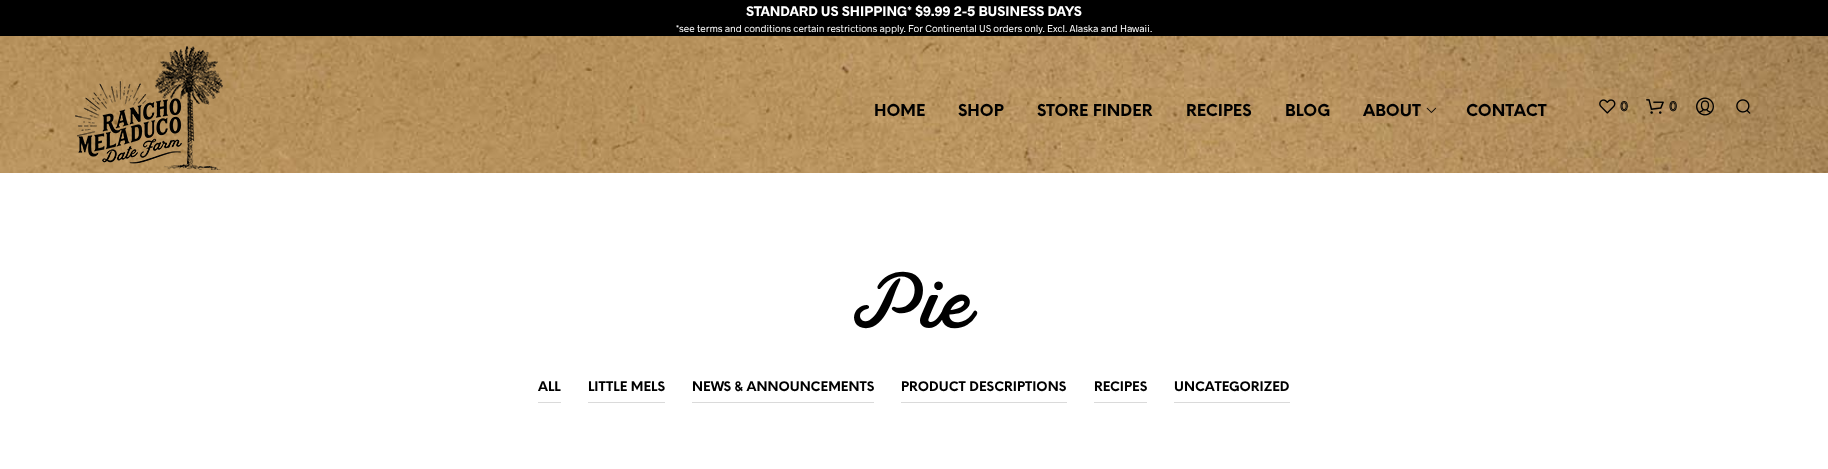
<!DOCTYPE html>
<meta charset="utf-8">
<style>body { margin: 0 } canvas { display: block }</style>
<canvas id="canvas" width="1828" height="469"></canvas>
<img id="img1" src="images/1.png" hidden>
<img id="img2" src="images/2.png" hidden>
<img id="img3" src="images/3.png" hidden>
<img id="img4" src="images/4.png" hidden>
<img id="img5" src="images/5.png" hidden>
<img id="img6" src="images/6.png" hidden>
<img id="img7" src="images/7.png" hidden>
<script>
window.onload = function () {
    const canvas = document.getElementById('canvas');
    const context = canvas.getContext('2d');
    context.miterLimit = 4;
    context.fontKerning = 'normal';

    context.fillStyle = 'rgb(255, 255, 255)';
    context.fillRect(0, 0, 1828, 469);
    context.fillStyle = 'rgb(0, 0, 0)';
    context.fillRect(0, 0, 1828, 36);
    context.drawImage(document.getElementById('img1'), 0, 36, 1828, 137);
    context.drawImage(document.getElementById('img2'), 75, 46, 148, 124);
    context.drawImage(document.getElementById('img3'), 1426, 107, 10, 6);
    context.drawImage(document.getElementById('img4'), 1599, 99, 17, 15);
    context.drawImage(document.getElementById('img5'), 1646, 99, 18, 15);
    context.drawImage(document.getElementById('img6'), 1696, 97, 18, 19);
    context.drawImage(document.getElementById('img7'), 1736, 99, 15, 15);
    context.fillStyle = 'rgb(218, 218, 218)';
    context.fillRect(538, 402, 23, 1);
    context.fillRect(588, 402, 77, 1);
    context.fillRect(692, 402, 182, 1);
    context.fillRect(901, 402, 166, 1);
    context.fillRect(1094, 402, 53, 1);
    context.fillRect(1174, 402, 116, 1);
    context.font = 'bold 14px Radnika';
    context.fillStyle = 'rgb(255, 255, 255)';
    context.fillText('STANDARD US SHIPPING* $9.99 2-5 BUSINESS DAYS', 746, 16);
    context.font = '10px Radnika';
    context.fillText('*see terms and conditions certain restrictions apply. For Continental US orders only. Excl. Alaska and Hawaii.', 676, 32);
    context.font = 'bold 16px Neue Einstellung';
    context.fillStyle = 'rgb(0, 0, 0)';
    context.fillText('HOME', 874, 116);
    context.fillText('SHOP', 958, 116);
    context.fillText('STORE FINDER', 1037, 116);
    context.fillText('RECIPES', 1186, 116);
    context.fillText('BLOG', 1285, 116);
    context.fillText('ABOUT', 1363, 116);
    context.fillText('CONTACT', 1466, 116);
    context.font = '13px "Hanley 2"';
    context.fillText('0', 1620, 111);
    context.fillText('0', 1669, 111);
    context.font = '73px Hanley';
    context.fillText('Pie', 854, 328);
    context.font = 'bold 13px Neue Einstellung';
    context.fillText('ALL', 538, 391);
    context.fillText('LITTLE MELS', 588, 391);
    context.fillText('NEWS & ANNOUNCEMENTS', 692, 391);
    context.fillText('PRODUCT DESCRIPTIONS', 901, 391);
    context.fillText('RECIPES', 1094, 391);
    context.fillText('UNCATEGORIZED', 1174, 391);
};
</script>
